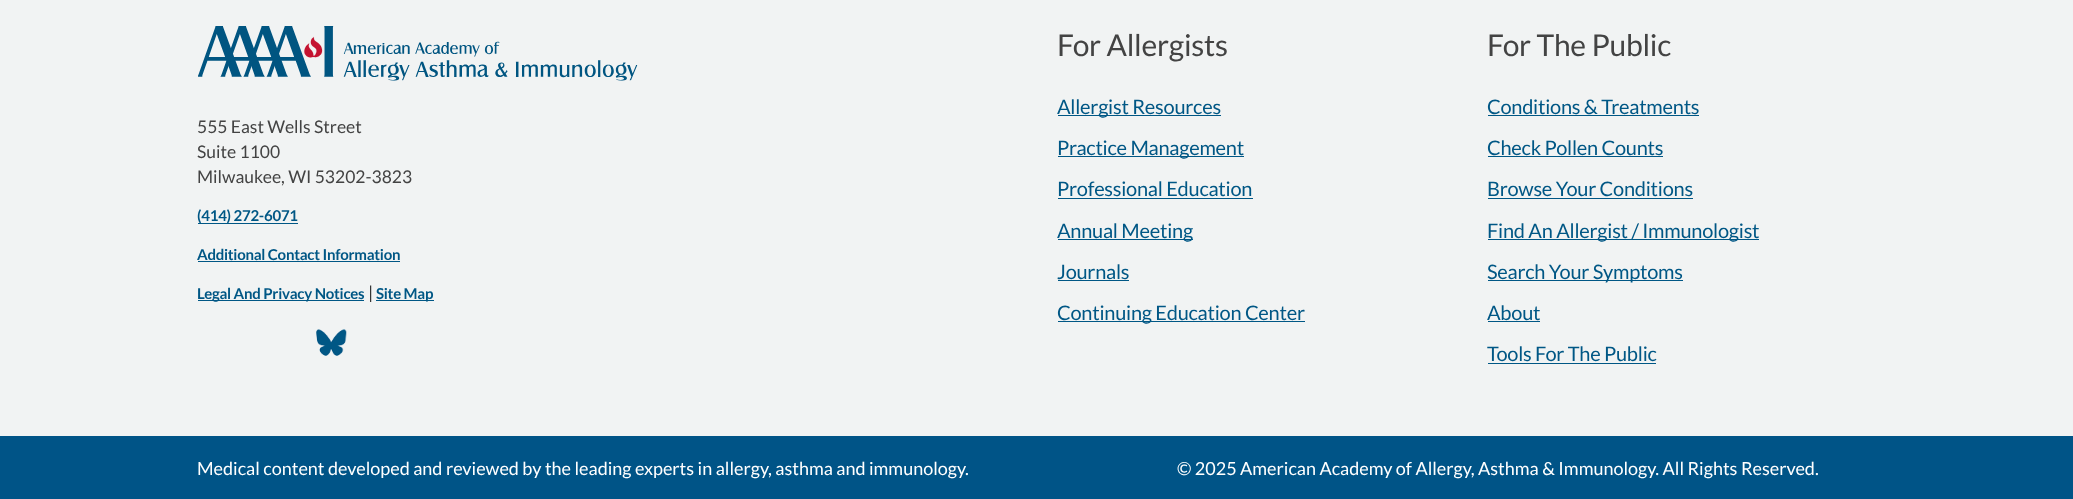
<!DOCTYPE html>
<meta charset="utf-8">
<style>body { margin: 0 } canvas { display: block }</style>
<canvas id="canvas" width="2073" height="499"></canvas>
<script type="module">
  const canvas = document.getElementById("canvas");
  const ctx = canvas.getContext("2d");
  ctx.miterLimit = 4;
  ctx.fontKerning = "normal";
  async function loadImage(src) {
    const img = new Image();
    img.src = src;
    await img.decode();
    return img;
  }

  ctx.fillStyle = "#f1f3f3";
  ctx.fillRect(0, 0, 2073, 499);
  ctx.drawImage(await loadImage("img1.png"), 198, 26, 440, 55);
  ctx.font = "17.5px Lato";
  ctx.fillStyle = "#434343";
  ctx.fillText("555 East Wells Street", 197, 133);
  ctx.fillText("Suite 1100", 197, 158);
  ctx.fillText("Milwaukee, WI 53202-3823", 197, 183);
  ctx.fillStyle = "#005785";
  ctx.fillRect(198, 223, 100, 1);
  ctx.letterSpacing = "-0.25px";
  ctx.font = "bold 15px Lato";
  ctx.fillText("(414) 272-6071", 197, 221);
  ctx.fillText("Additional Contact Information", 197, 260);
  ctx.fillRect(198, 261, 202, 1);
  ctx.fillRect(198, 300, 166, 1);
  ctx.fillText("Legal And Privacy Notices", 197, 299);
  ctx.letterSpacing = "0px";
  ctx.font = "17.5px Lato";
  ctx.fillStyle = "#323232";
  ctx.fillText("|", 368, 299);
  ctx.fillStyle = "#005785";
  ctx.fillRect(376, 300, 58, 1);
  ctx.letterSpacing = "-0.25px";
  ctx.font = "bold 15px Lato";
  ctx.fillText("Site Map", 376, 299);
  ctx.drawImage(await loadImage("img2.png"), 316, 329, 31, 27);
  ctx.font = "30px Lato";
  ctx.fillStyle = "#434343";
  ctx.fillText("For Allergists", 1057, 56);
  ctx.fillStyle = "#005785";
  ctx.fillRect(1058, 115, 163, 1);
  ctx.font = "20px Lato";
  ctx.fillText("Allergist Resources", 1057, 114);
  ctx.fillRect(1058, 156, 186, 1);
  ctx.fillText("Practice Management", 1057, 155);
  ctx.fillText("Professional Education", 1057, 196);
  ctx.fillRect(1058, 198, 195, 1);
  ctx.fillRect(1058, 239, 135, 1);
  ctx.fillText("Annual Meeting", 1057, 238);
  ctx.fillText("Journals", 1057, 279);
  ctx.fillRect(1058, 280, 71, 1);
  ctx.fillRect(1058, 321, 247, 1);
  ctx.fillText("Continuing Education Center", 1057, 320);
  ctx.font = "30px Lato";
  ctx.fillStyle = "#434343";
  ctx.fillText("For The Public", 1487, 56);
  ctx.font = "20px Lato";
  ctx.fillStyle = "#005785";
  ctx.fillText("Conditions & Treatments", 1487, 114);
  ctx.fillRect(1488, 115, 211, 1);
  ctx.fillText("Check Pollen Counts", 1487, 155);
  ctx.fillRect(1488, 156, 175, 1);
  ctx.fillText("Browse Your Conditions", 1487, 196);
  ctx.fillRect(1488, 198, 205, 1);
  ctx.fillRect(1488, 239, 271, 1);
  ctx.fillText("Find An Allergist / Immunologist", 1487, 238);
  ctx.fillRect(1488, 280, 195, 1);
  ctx.fillText("Search Your Symptoms", 1487, 279);
  ctx.fillText("About", 1487, 320);
  ctx.fillRect(1488, 321, 52, 1);
  ctx.fillText("Tools For The Public", 1487, 361);
  ctx.fillRect(1488, 363, 168, 1);
  ctx.fillStyle = "#005487";
  ctx.fillRect(0, 436, 2073, 63);
  ctx.letterSpacing = "0px";
  ctx.font = "18px Lato";
  ctx.fillStyle = "#ffffff";
  ctx.fillText("Medical content developed and reviewed by the leading experts in allergy, asthma and immunology.", 197, 475);
  ctx.fillText("© 2025 American Academy of Allergy, Asthma & Immunology. All Rights Reserved.", 1177, 475);
</script>
